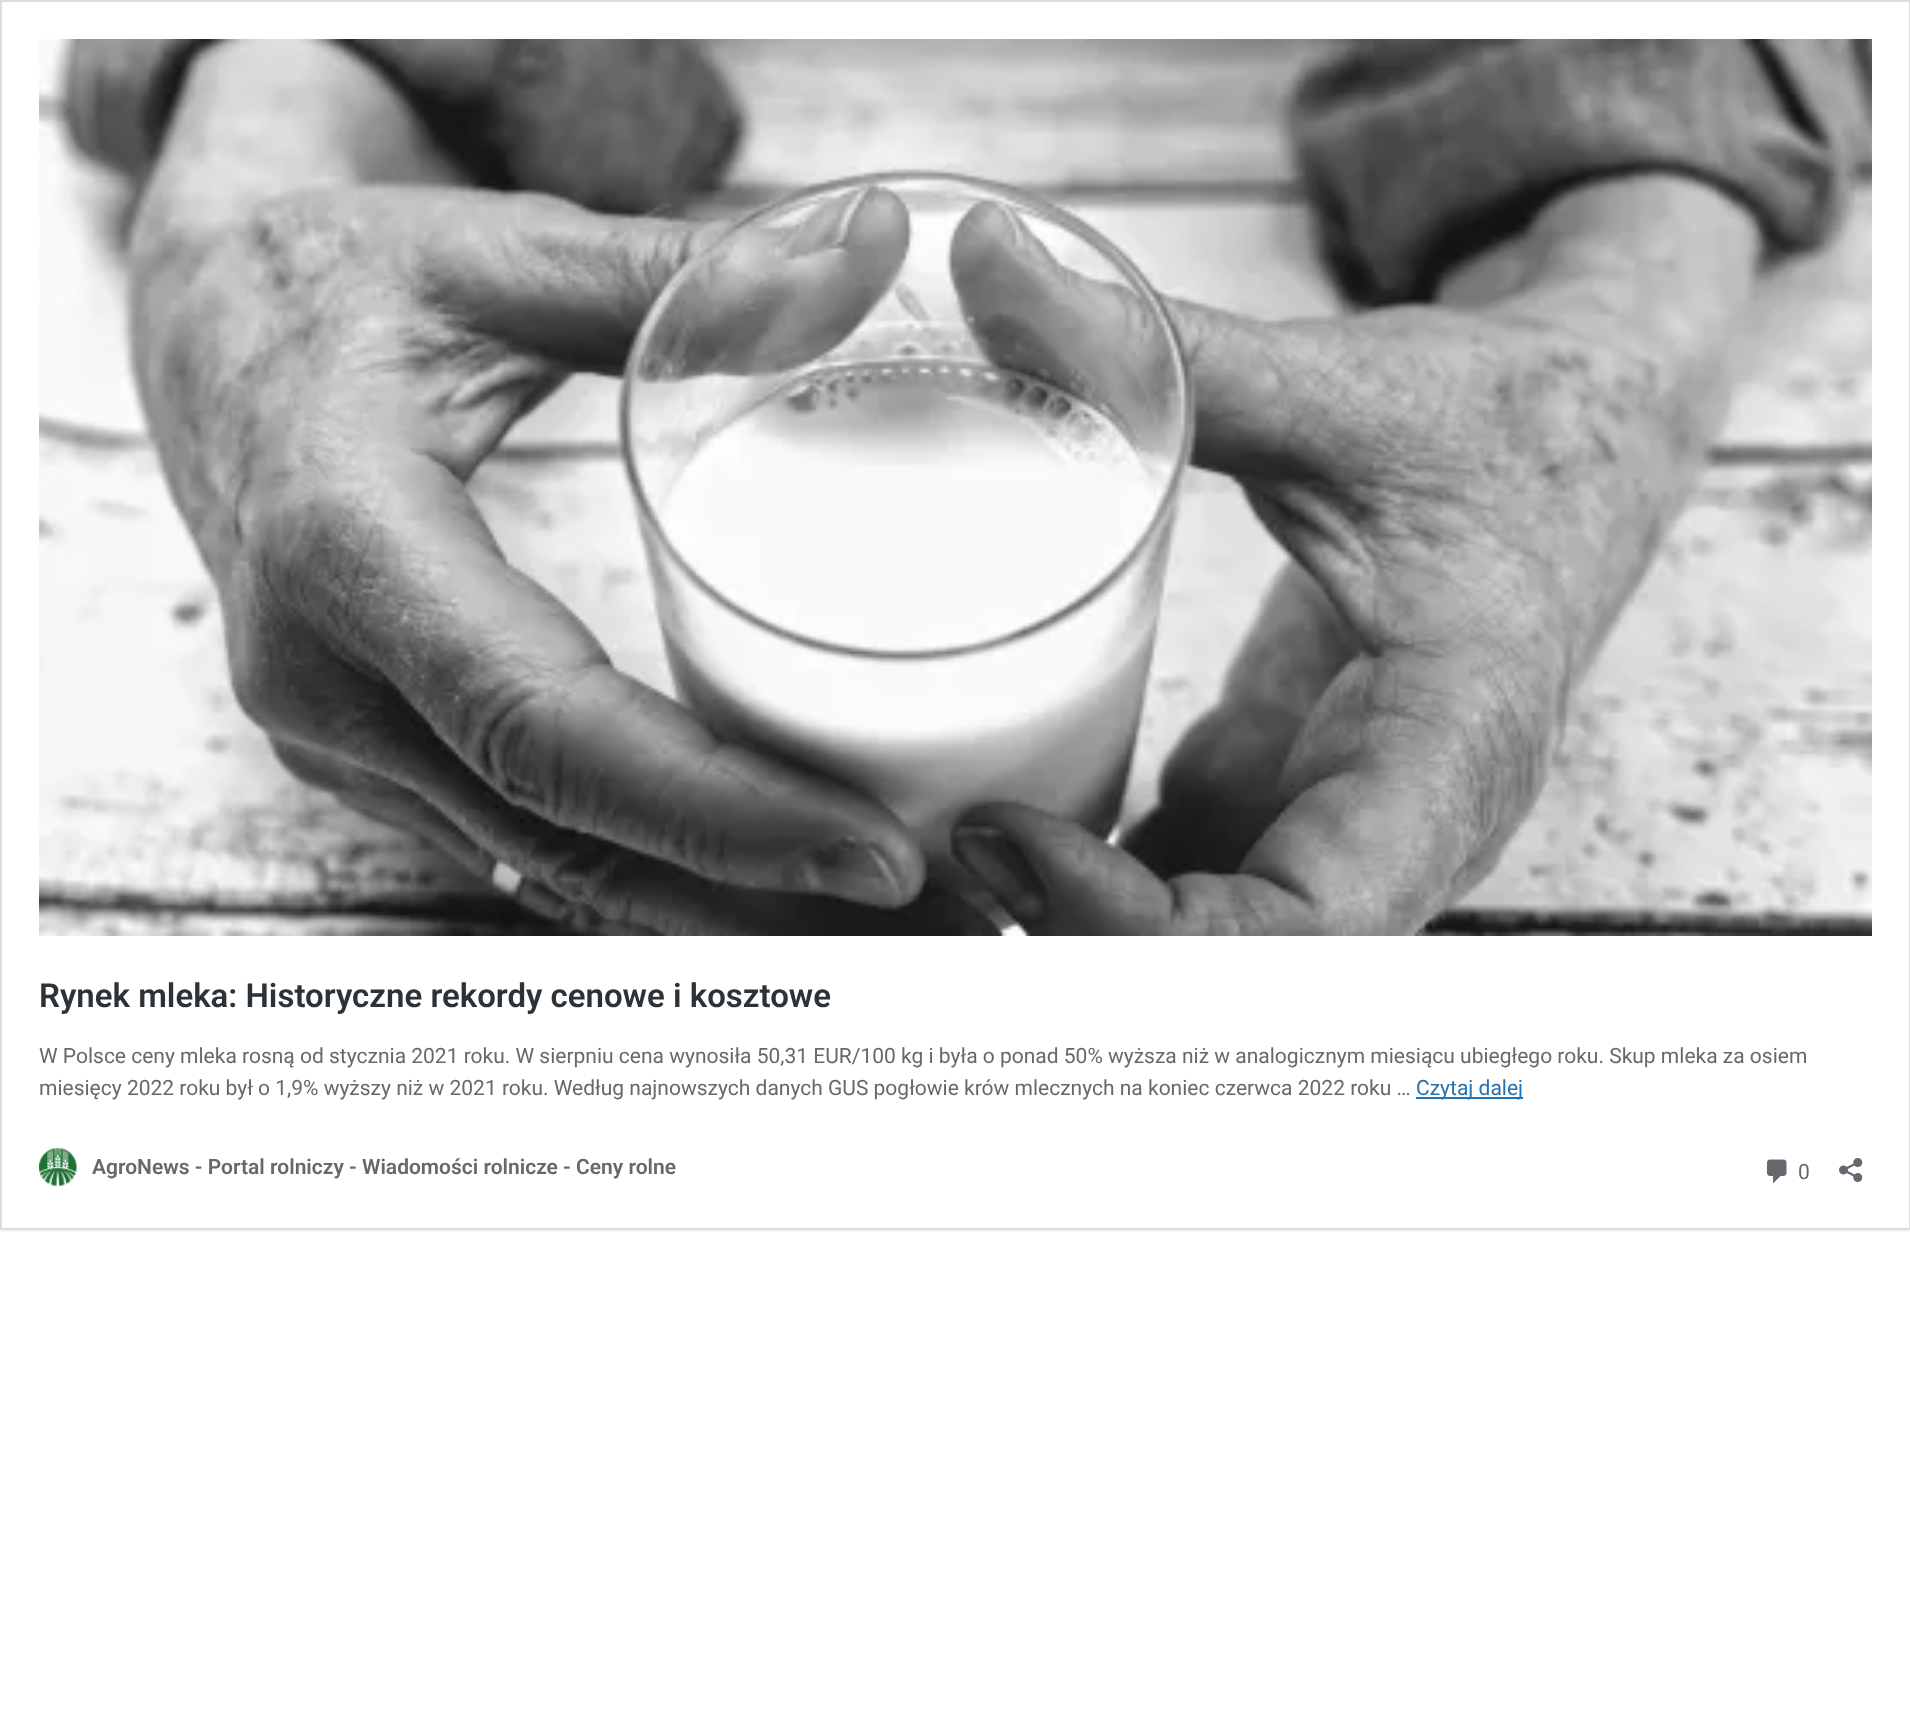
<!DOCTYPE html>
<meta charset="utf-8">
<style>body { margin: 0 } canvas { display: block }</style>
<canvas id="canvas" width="1910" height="1717"></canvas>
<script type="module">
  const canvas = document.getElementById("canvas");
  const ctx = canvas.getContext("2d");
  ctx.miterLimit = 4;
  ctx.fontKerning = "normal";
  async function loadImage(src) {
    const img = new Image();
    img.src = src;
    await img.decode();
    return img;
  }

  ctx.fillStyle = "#ffffff";
  ctx.fillRect(0, 0, 1910, 1717);
  ctx.save();
  ctx.beginPath();
  ctx.rect(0, 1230, 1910, 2);
  ctx.clip();
  ctx.fillStyle = "rgba(0, 0, 0, 0.05)";
  ctx.filter = "blur(1px)";
  ctx.beginPath();
  ctx.rect(0, 2, 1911, 1230);
  ctx.fill();
  ctx.filter = "none";
  ctx.restore();
  ctx.strokeStyle = "#dcdcde";
  ctx.lineWidth = 2;
  ctx.strokeRect(1, 1, 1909, 1228);
  ctx.drawImage(await loadImage("img1.png"), 39, 39, 1833, 897);
  ctx.font = "600 33px Roboto";
  ctx.fillStyle = "#2c3338";
  ctx.fillText("Rynek mleka: Historyczne rekordy cenowe i kosztowe", 39, 1007);
  ctx.font = "21px Roboto";
  ctx.fillStyle = "#646970";
  ctx.fillText("W Polsce ceny mleka rosną od stycznia 2021 roku. W sierpniu cena wynosiła 50,31 EUR/100 kg i była o ponad 50% wyższa niż w analogicznym miesiącu ubiegłego roku. Skup mleka za osiem", 39, 1063);
  ctx.fillText("miesięcy 2022 roku był o 1,9% wyższy niż w 2021 roku. Według najnowszych danych GUS pogłowie krów mlecznych na koniec czerwca 2022 roku …", 39, 1095);
  ctx.fillStyle = "#2271b1";
  ctx.fillRect(1416, 1097, 107, 2);
  ctx.fillText("Czytaj dalej", 1416, 1095);
  ctx.drawImage(await loadImage("img2.png"), 39, 1148, 38, 38);
  ctx.font = "600 21px Roboto";
  ctx.fillStyle = "#646970";
  ctx.fillText("AgroNews - Portal rolniczy - Wiadomości rolnicze - Ceny rolne", 92, 1174);
  ctx.drawImage(await loadImage("img3.png"), 1767, 1159, 20, 25);
  ctx.font = "21px Roboto";
  ctx.fillText("0", 1798, 1179);
  ctx.drawImage(await loadImage("img4.png"), 1839, 1158, 24, 24);
</script>
